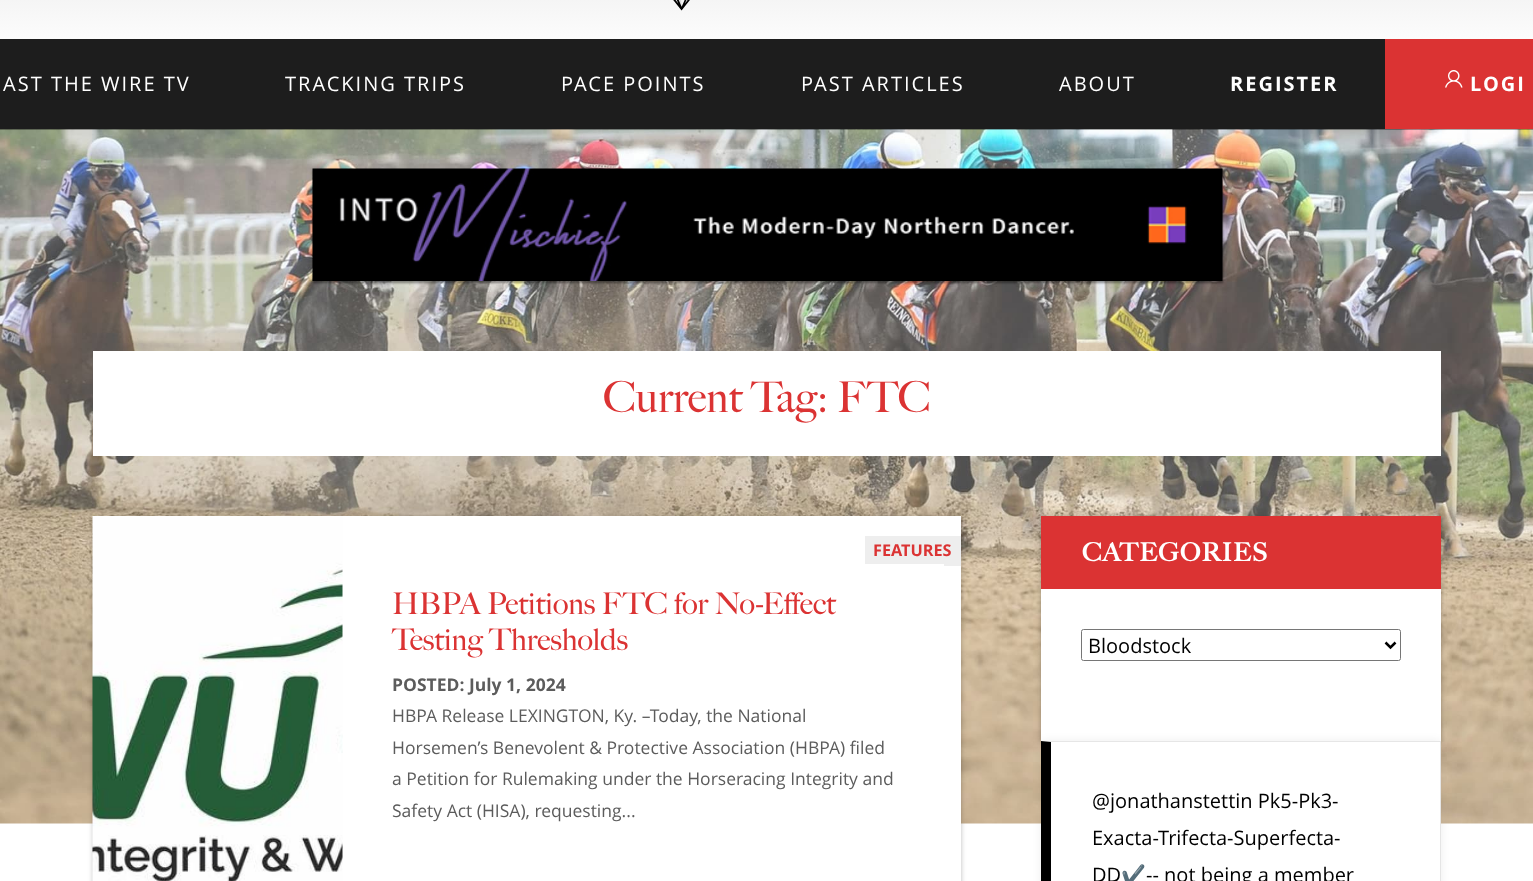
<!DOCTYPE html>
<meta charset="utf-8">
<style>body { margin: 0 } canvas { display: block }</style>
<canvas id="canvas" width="1533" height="881"></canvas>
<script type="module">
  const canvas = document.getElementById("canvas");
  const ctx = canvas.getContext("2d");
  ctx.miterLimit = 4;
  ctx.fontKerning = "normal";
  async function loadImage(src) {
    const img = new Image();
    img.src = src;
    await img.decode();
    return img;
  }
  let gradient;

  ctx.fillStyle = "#ffffff";
  ctx.fillRect(0, 0, 1533, 881);
  ctx.drawImage(await loadImage("img3.png"), 0, 129, 1533, 695);
  ctx.fillStyle = "rgba(0, 0, 0, 0.32)";
  ctx.filter = "blur(0.5px)";
  ctx.beginPath();
  ctx.rect(0, 40, 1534, 90);
  ctx.fill();
  ctx.filter = "none";
  gradient = ctx.createLinearGradient(767, -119, 767, 39);
  gradient.addColorStop(0, "#dfdfdf");
  gradient.addColorStop(1, "#fcfcfc");
  ctx.fillStyle = gradient;
  ctx.fillRect(0, 0, 1533, 39);
  ctx.drawImage(await loadImage("img1.png"), 673, 0, 17, 11);
  ctx.fillStyle = "#1d1d1d";
  ctx.fillRect(0, 39, 1385, 90);
  ctx.letterSpacing = "2px";
  ctx.font = "20px Open Sans";
  ctx.fillStyle = "#ffffff";
  ctx.fillText("AST THE WIRE TV", 3, 91);
  ctx.fillText("TRACKING TRIPS", 285, 91);
  ctx.fillText("PACE POINTS", 561, 91);
  ctx.fillText("PAST ARTICLES", 801, 91);
  ctx.fillText("ABOUT", 1059, 91);
  ctx.font = "bold 20px Open Sans";
  ctx.fillText("REGISTER", 1230, 91);
  ctx.fillStyle = "#db3333";
  ctx.fillRect(1385, 39, 148, 90);
  ctx.drawImage(await loadImage("img2.png"), 1445, 70, 18, 18);
  ctx.fillStyle = "#ffffff";
  ctx.fillText("LOGI", 1470, 91);
  ctx.fillStyle = "rgba(0, 0, 0, 0.4)";
  ctx.filter = "blur(1px)";
  ctx.beginPath();
  ctx.rect(313, 170, 910, 113);
  ctx.fill();
  ctx.filter = "none";
  ctx.drawImage(await loadImage("img4.png"), 312, 168, 911, 113);
  ctx.fillStyle = "#ffffff";
  ctx.fillRect(93, 351, 1348, 105);
  ctx.letterSpacing = "0px";
  ctx.font = "42.5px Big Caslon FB";
  ctx.fillStyle = "#db3333";
  ctx.fillText("Current Tag: FTC", 603, 412);
  ctx.fillStyle = "rgba(0, 0, 0, 0.27)";
  ctx.filter = "blur(2.5px)";
  ctx.beginPath();
  ctx.rect(93, 518, 868, 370);
  ctx.fill();
  ctx.filter = "none";
  ctx.fillStyle = "#ffffff";
  ctx.fillRect(342, 516, 619, 365);
  ctx.drawImage(await loadImage("img5.png"), 92, 516, 251, 365);
  ctx.fillStyle = "#eeeeee";
  ctx.fillRect(944, 536, 17, 30);
  ctx.fillRect(865, 536, 79, 28);
  ctx.font = "bold 16.25px Open Sans";
  ctx.fillStyle = "#db3333";
  ctx.fillText("FEATURES", 873, 556);
  ctx.font = "30px Big Caslon FB";
  ctx.fillText("HBPA Petitions FTC for No-Effect", 392, 614);
  ctx.fillText("Testing Thresholds", 392, 650);
  ctx.font = "bold 17.5px Open Sans";
  ctx.fillStyle = "#5c5c5c";
  ctx.fillText("POSTED: July 1, 2024", 392, 691);
  ctx.font = "17.5px Open Sans";
  ctx.fillText("HBPA Release LEXINGTON, Ky. –Today, the National", 392, 722);
  ctx.fillText("Horsemen’s Benevolent & Protective Association (HBPA) filed", 392, 754);
  ctx.fillText("a Petition for Rulemaking under the Horseracing Integrity and", 392, 785);
  ctx.fillText("Safety Act (HISA), requesting...", 392, 817);
  ctx.fillStyle = "rgba(0, 0, 0, 0.27)";
  ctx.filter = "blur(2.5px)";
  ctx.beginPath();
  ctx.rect(1041, 518, 400, 225);
  ctx.fill();
  ctx.filter = "none";
  ctx.fillStyle = "#ffffff";
  ctx.fillRect(1041, 589, 400, 152);
  ctx.fillStyle = "#db3333";
  ctx.fillRect(1041, 516, 400, 73);
  ctx.letterSpacing = "1.25px";
  ctx.font = "bold 25px Big Caslon FB";
  ctx.fillStyle = "#ffffff";
  ctx.fillText("CATEGORIES", 1082, 561);
  ctx.beginPath();
  ctx.roundRect(1081.5, 629.5, 319, 31, 2);
  ctx.strokeStyle = "#767676";
  ctx.stroke();
  ctx.beginPath();
  ctx.moveTo(1385.5, 642.5);
  ctx.lineTo(1390.5, 647.5);
  ctx.lineTo(1395.5, 642.5);
  ctx.strokeStyle = "#000000";
  ctx.lineWidth = 2.5;
  ctx.stroke();
  ctx.letterSpacing = "0px";
  ctx.font = "20px Open Sans";
  ctx.fillStyle = "#000000";
  ctx.fillText("Bloodstock", 1088, 653);
  ctx.fillStyle = "rgba(0, 0, 0, 0.07)";
  ctx.filter = "blur(4px)";
  ctx.beginPath();
  ctx.rect(1041, 741, 400, 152);
  ctx.fill();
  ctx.filter = "none";
  ctx.fillStyle = "#ffffff";
  ctx.fillRect(1041, 741, 400, 140);
  ctx.fillStyle = "#e6e6e6";
  ctx.beginPath();
  ctx.moveTo(1041, 741);
  ctx.lineTo(1441, 741);
  ctx.lineTo(1440, 742);
  ctx.lineTo(1051, 742);
  ctx.closePath();
  ctx.fill();
  ctx.fillStyle = "rgba(0, 0, 0, 0.1)";
  ctx.beginPath();
  ctx.moveTo(1441, 741);
  ctx.lineTo(1441, 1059);
  ctx.lineTo(1440, 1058);
  ctx.lineTo(1440, 742);
  ctx.closePath();
  ctx.fill();
  ctx.fillStyle = "#000000";
  ctx.beginPath();
  ctx.moveTo(1041, 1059);
  ctx.lineTo(1041, 741);
  ctx.lineTo(1051, 742);
  ctx.lineTo(1051, 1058);
  ctx.closePath();
  ctx.fill();
  ctx.fillText("@jonathanstettin Pk5-Pk3-", 1092, 808);
  ctx.fillText("Exacta-Trifecta-Superfecta-", 1092, 845);
  ctx.fillText("DD", 1092, 882);
  ctx.font = "20px Noto Color Emoji";
  ctx.fillText("✔️", 1121, 882);
  ctx.font = "20px Open Sans";
  ctx.fillText("-- not being a member", 1146, 882);
</script>
